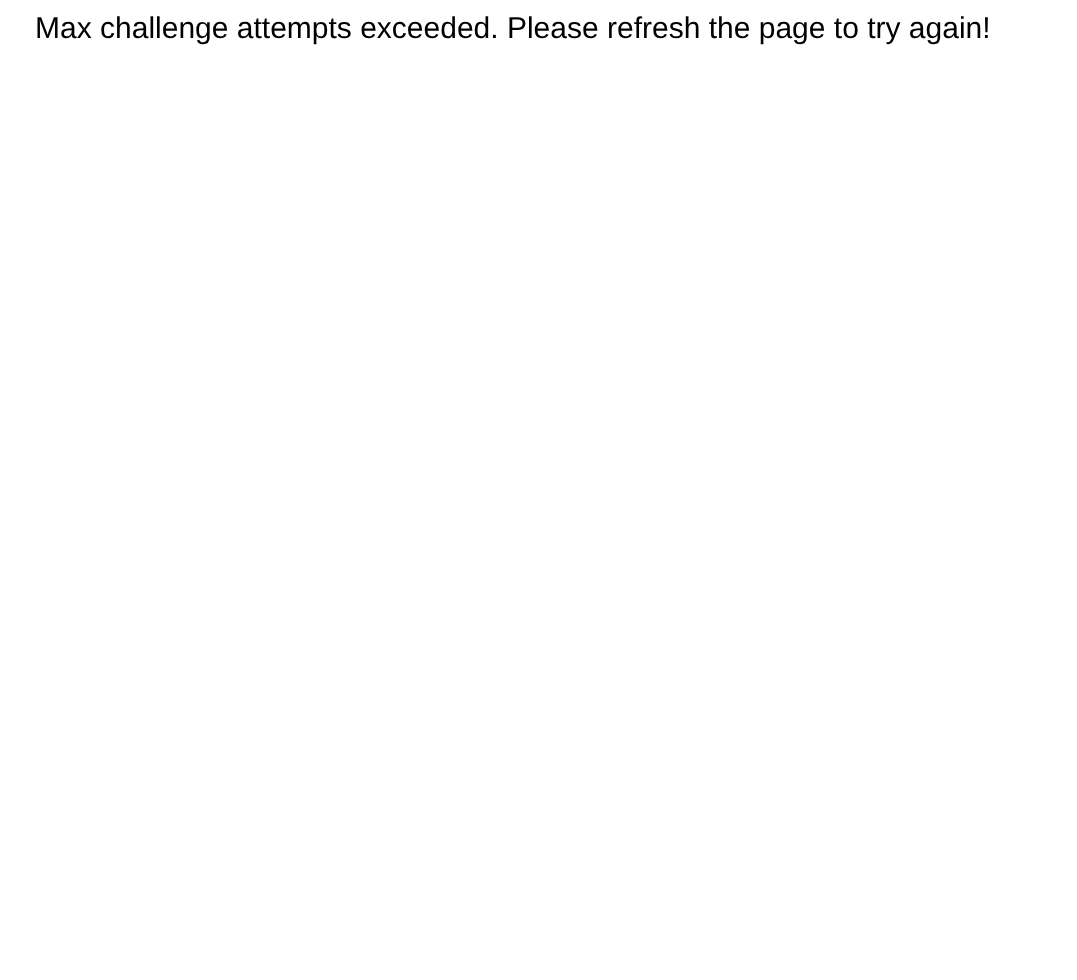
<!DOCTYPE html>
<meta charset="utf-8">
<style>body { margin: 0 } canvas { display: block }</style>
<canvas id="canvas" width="1077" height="980"></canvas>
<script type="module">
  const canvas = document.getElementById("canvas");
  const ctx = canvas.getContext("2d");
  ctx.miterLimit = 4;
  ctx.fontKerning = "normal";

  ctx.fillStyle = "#ffffff";
  ctx.fillRect(0, 0, 1077, 980);
  ctx.font = "30px Liberation Sans";
  ctx.fillStyle = "#000000";
  ctx.fillText("Max challenge attempts exceeded. Please refresh the page to try again!", 35, 38);
</script>
